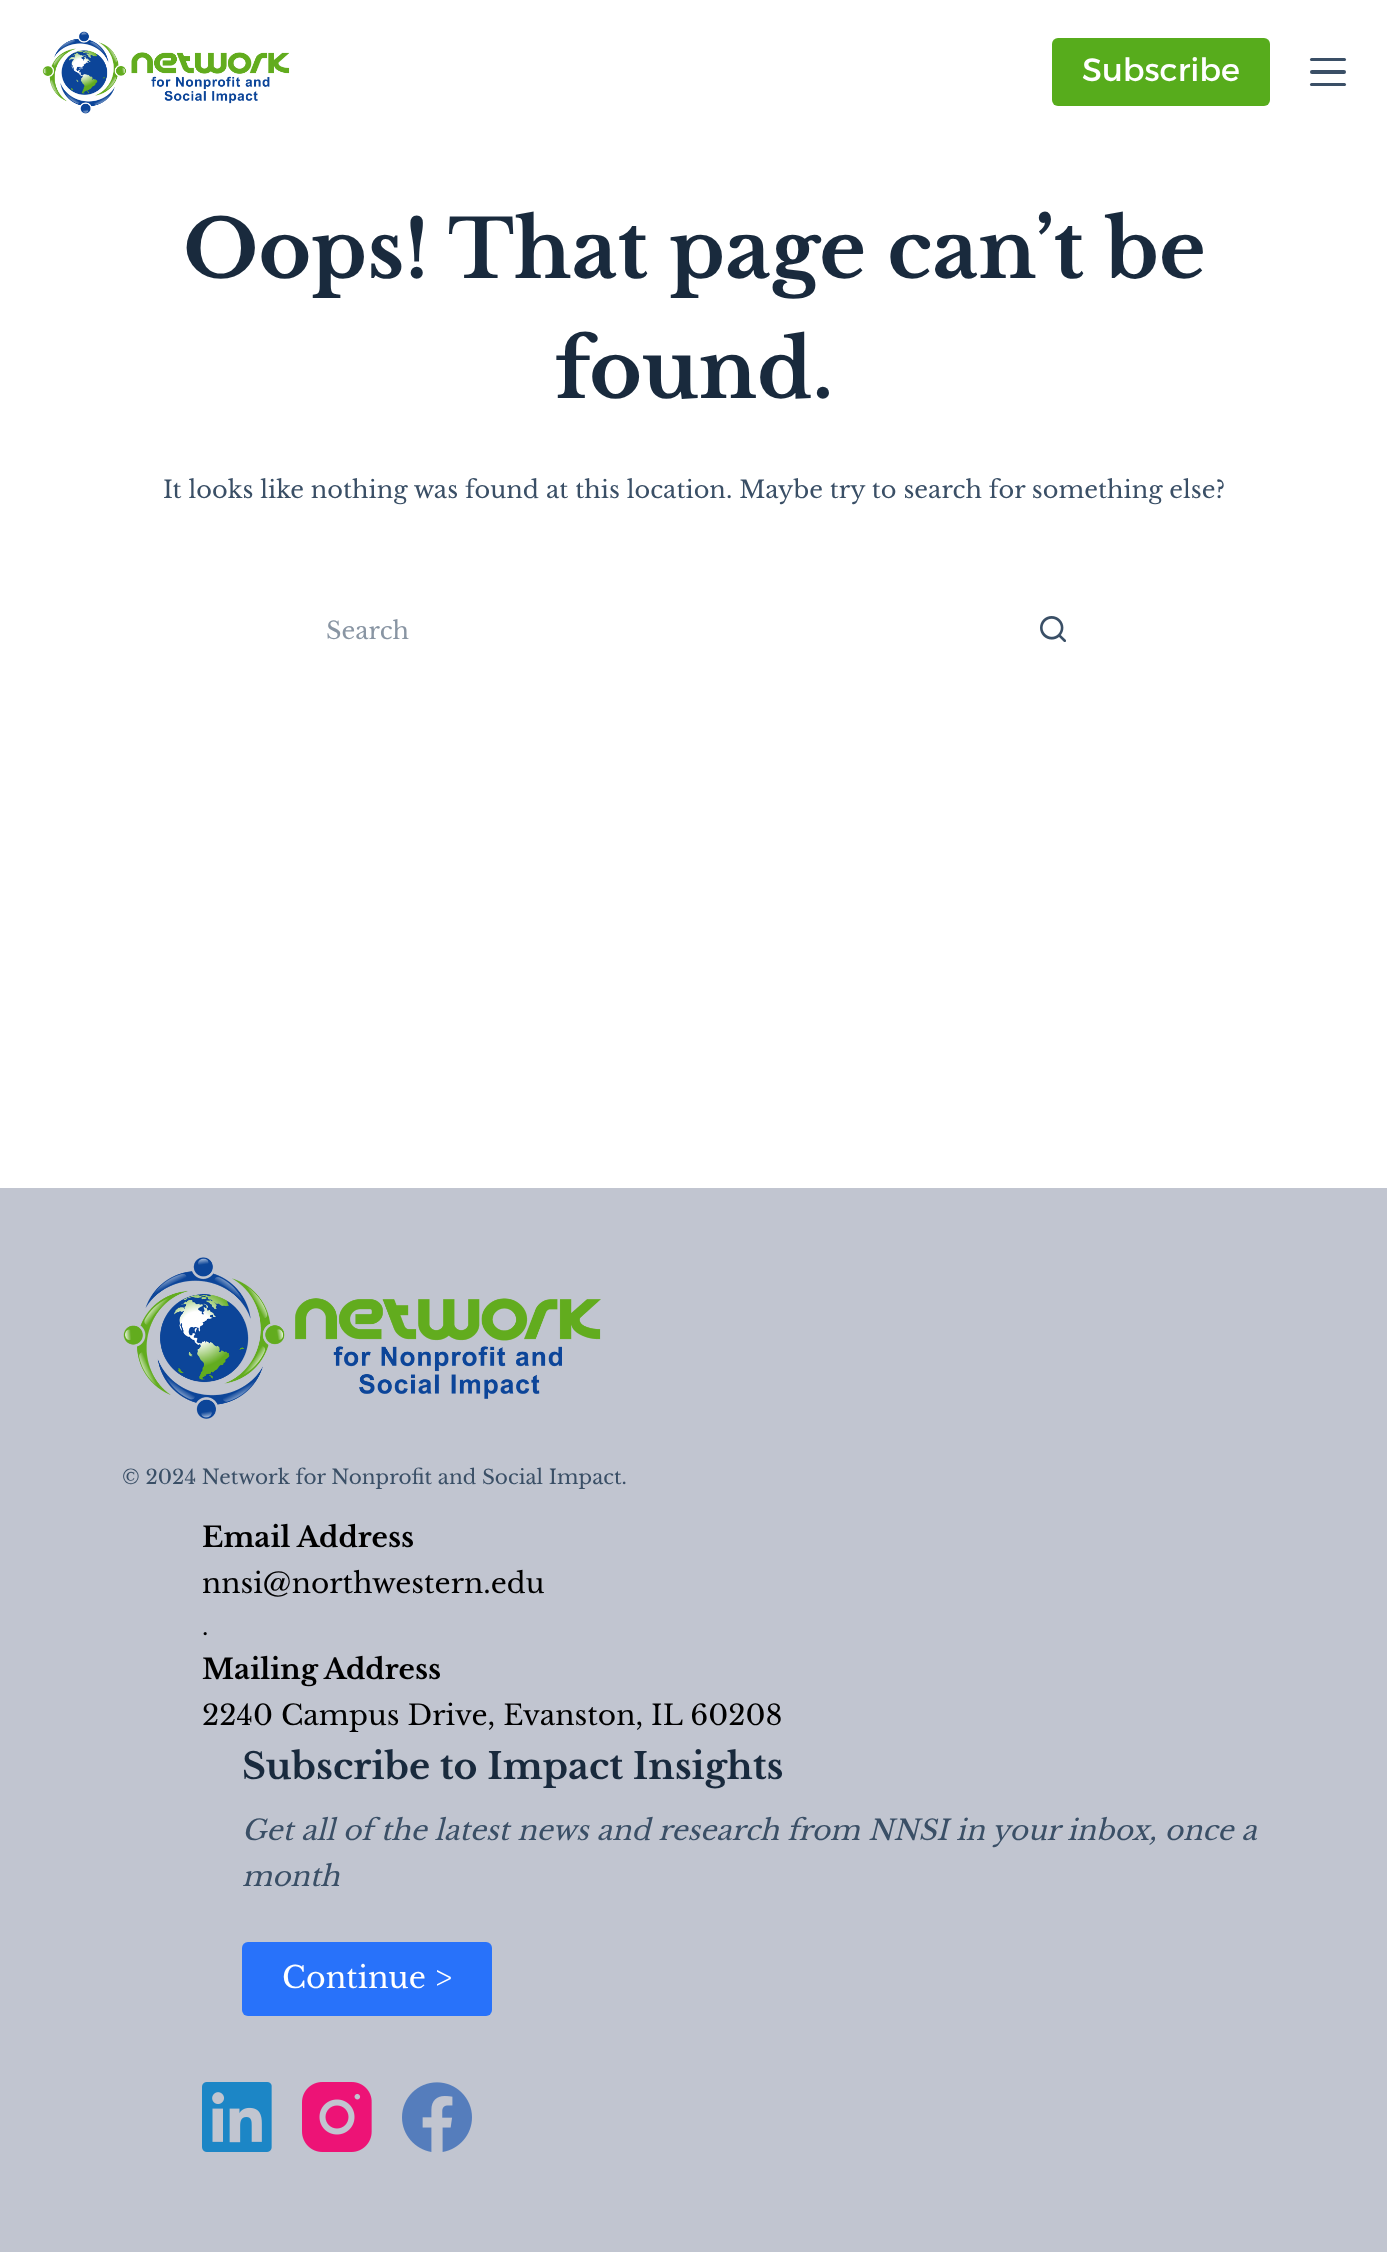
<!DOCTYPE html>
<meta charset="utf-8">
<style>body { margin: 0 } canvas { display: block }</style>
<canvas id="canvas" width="1387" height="2252"></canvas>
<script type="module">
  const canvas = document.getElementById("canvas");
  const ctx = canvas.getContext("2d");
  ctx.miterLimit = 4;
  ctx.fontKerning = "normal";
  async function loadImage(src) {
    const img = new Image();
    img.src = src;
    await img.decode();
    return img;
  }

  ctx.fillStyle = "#ffffff";
  ctx.fillRect(0, 0, 1387, 2252);
  ctx.drawImage(await loadImage("img1.png"), 42, 31, 248, 83);
  ctx.fillStyle = "#57ac1c";
  ctx.beginPath();
  ctx.roundRect(1052, 38, 218, 68, 6);
  ctx.fill();
  ctx.font = "32px Alexandria";
  ctx.fillStyle = "#ffffff";
  ctx.fillText("Subscribe", 1082, 81);
  ctx.fillStyle = "#3a4f66";
  ctx.beginPath();
  ctx.roundRect(1310, 58, 36, 3, 1.5);
  ctx.fill();
  ctx.beginPath();
  ctx.roundRect(1310, 70, 36, 4, 2);
  ctx.fill();
  ctx.beginPath();
  ctx.roundRect(1310, 83, 36, 3, 1.5);
  ctx.fill();
  ctx.font = "bold 80px Libre Baskerville";
  ctx.fillStyle = "#192a3d";
  ctx.fillText("Oops! That page can’t be", 183, 278);
  ctx.fillText("found.", 555, 398);
  ctx.font = "24px Libre Baskerville";
  ctx.fillStyle = "#3a4f66";
  ctx.fillText("It looks like nothing was found at this location. Maybe try to search for something else?", 163, 498);
  ctx.fillStyle = "#8995a3";
  ctx.fillText("Search", 326, 639);
  ctx.drawImage(await loadImage("img2.png"), 1040, 616, 26, 26);
  ctx.fillStyle = "#c1c5d0";
  ctx.fillRect(0, 1188, 1387, 1064);
  ctx.drawImage(await loadImage("img3.png"), 123, 1257, 478, 162);
  ctx.font = "20px Libre Baskerville";
  ctx.fillStyle = "#3a4f66";
  ctx.fillText("© 2024 Network for Nonprofit and Social Impact.", 122, 1484);
  ctx.font = "bold 28px Libre Baskerville";
  ctx.fillStyle = "#000000";
  ctx.fillText("Email Address", 202, 1547);
  ctx.font = "28px Libre Baskerville";
  ctx.fillText("nnsi@northwestern.edu", 202, 1593);
  ctx.font = "24px Libre Baskerville";
  ctx.fillText(".", 202, 1635);
  ctx.font = "bold 28px Libre Baskerville";
  ctx.fillText("Mailing Address", 202, 1679);
  ctx.font = "28px Libre Baskerville";
  ctx.fillText("2240 Campus Drive, Evanston, IL 60208", 202, 1725);
  ctx.font = "bold 36.25px Libre Baskerville";
  ctx.fillStyle = "#192a3d";
  ctx.fillText("Subscribe to Impact Insights", 242, 1779);
  ctx.font = "italic 28px Libre Baskerville";
  ctx.fillStyle = "#3a4f66";
  ctx.fillText("Get all of the latest news and research from NNSI in your inbox, once a", 242, 1840);
  ctx.fillText("month", 242, 1886);
  ctx.fillStyle = "#2872fa";
  ctx.beginPath();
  ctx.roundRect(242, 1942, 250, 74, 6);
  ctx.fill();
  ctx.font = "30px Libre Baskerville";
  ctx.fillStyle = "#ffffff";
  ctx.fillText("Continue >", 282, 1988);
  ctx.drawImage(await loadImage("img4.png"), 202, 2082, 70, 70);
  ctx.drawImage(await loadImage("img5.png"), 302, 2082, 70, 70);
  ctx.drawImage(await loadImage("img6.png"), 402, 2082, 70, 70);
</script>
